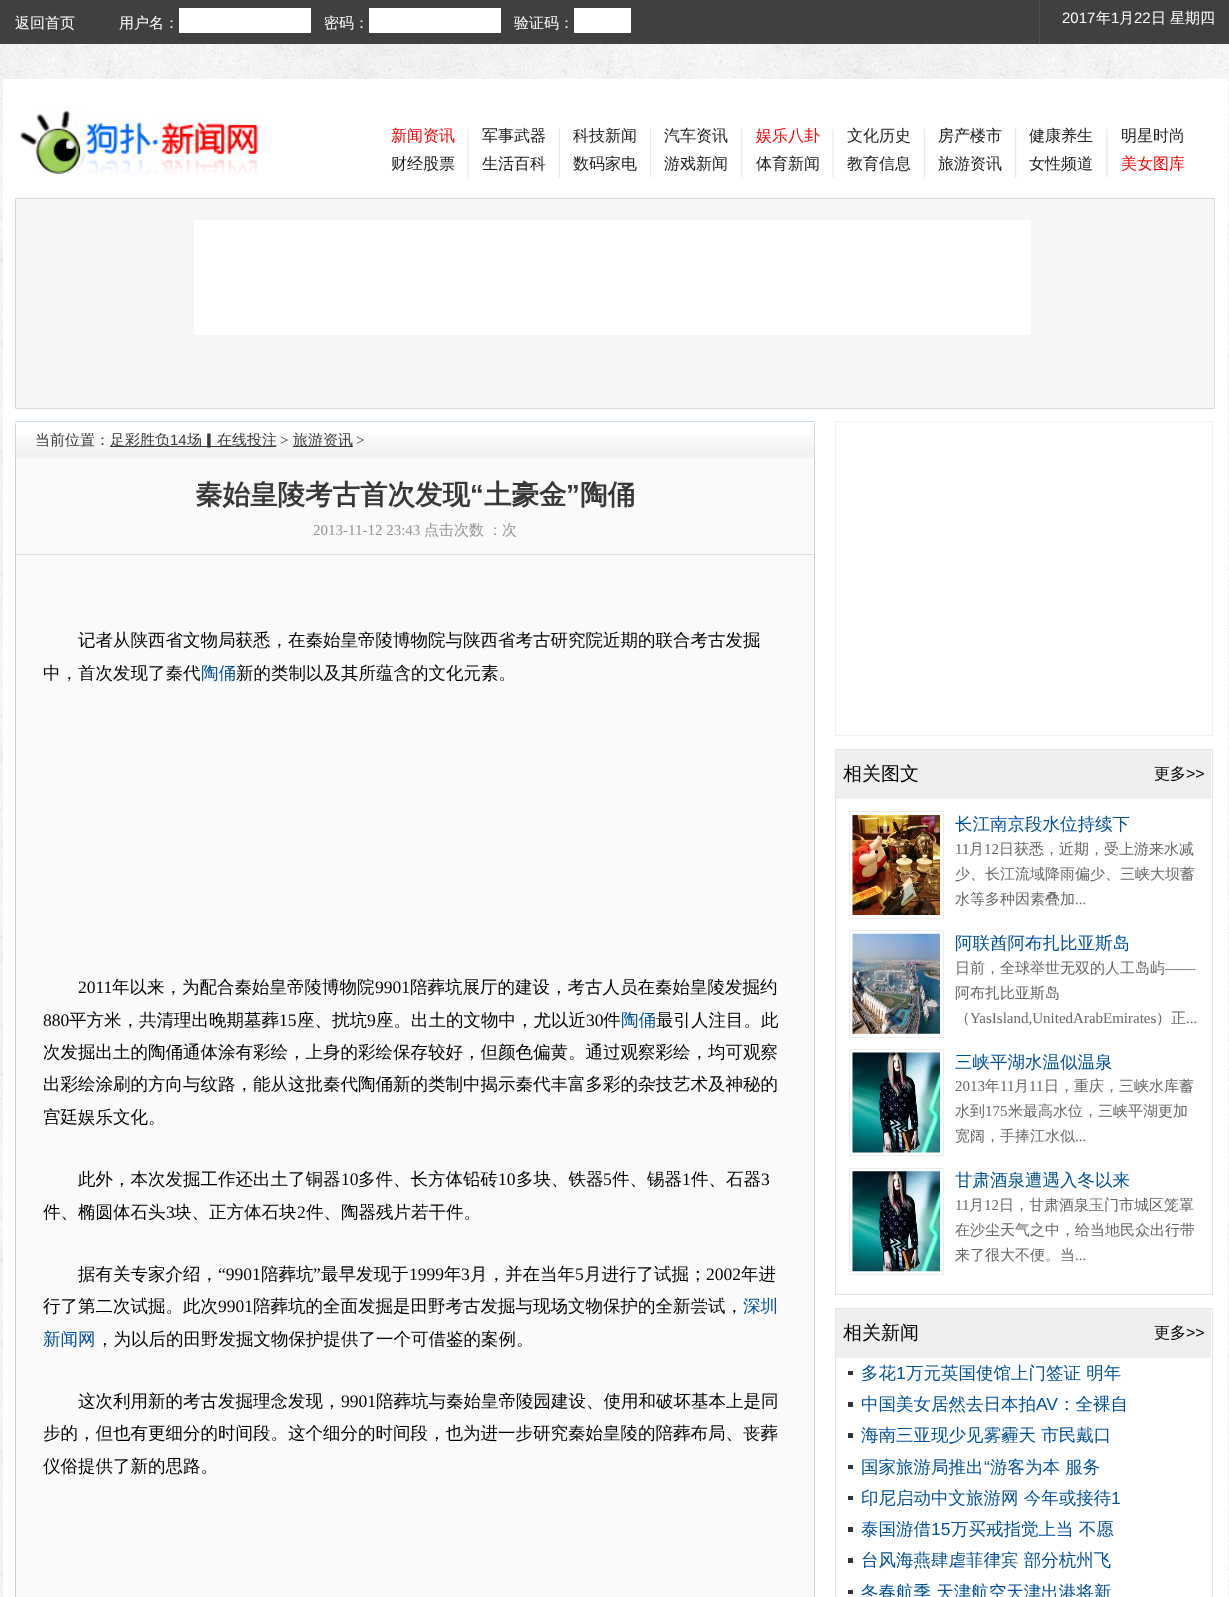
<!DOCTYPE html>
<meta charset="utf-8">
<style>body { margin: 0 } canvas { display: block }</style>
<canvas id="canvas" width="1229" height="1597"></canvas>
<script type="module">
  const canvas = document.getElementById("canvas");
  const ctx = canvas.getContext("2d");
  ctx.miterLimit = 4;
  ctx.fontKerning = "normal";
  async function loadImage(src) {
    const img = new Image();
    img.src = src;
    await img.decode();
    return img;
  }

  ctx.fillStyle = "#ffffff";
  ctx.fillRect(0, 0, 1229, 1597);
  ctx.drawImage(await loadImage("img1.png"), 0, 44, 1229, 1553);
  ctx.fillStyle = "#404040";
  ctx.fillRect(0, 0, 1229, 44);
  ctx.font = "500 15px WenQuanYi Zen Hei";
  ctx.fillStyle = "#ffffff";
  ctx.fillText("返回首页", 15, 28);
  ctx.fillText("用户名：", 119, 28);
  ctx.fillRect(179, 8, 132, 25);
  ctx.fillText("密码：", 324, 28);
  ctx.fillRect(369, 8, 132, 25);
  ctx.fillText("验证码：", 514, 28);
  ctx.fillRect(574, 8, 57, 25);
  ctx.fillStyle = "#525252";
  ctx.fillRect(1039, 0, 1, 44);
  ctx.font = "15px Liberation Sans";
  ctx.fillStyle = "#ffffff";
  ctx.fillText("2017", 1062, 23);
  ctx.font = "500 15px WenQuanYi Zen Hei";
  ctx.fillText("年", 1096, 23);
  ctx.font = "15px Liberation Sans";
  ctx.fillText("1", 1111, 23);
  ctx.font = "500 15px WenQuanYi Zen Hei";
  ctx.fillText("月", 1119, 23);
  ctx.font = "15px Liberation Sans";
  ctx.fillText("22", 1134, 23);
  ctx.font = "500 15px WenQuanYi Zen Hei";
  ctx.fillText("日", 1151, 23);
  ctx.fillText("星期四", 1170, 23);
  ctx.fillRect(3, 79, 1225, 1518);
  ctx.drawImage(await loadImage("img2.png"), 20, 110, 238, 65);
  ctx.drawImage(await loadImage("img3.png"), 467, 129, 2, 49);
  ctx.font = "500 16px WenQuanYi Zen Hei";
  ctx.fillStyle = "#ff0000";
  ctx.fillText("新闻资讯", 391, 141);
  ctx.fillStyle = "#1b1b1b";
  ctx.fillText("财经股票", 391, 169);
  ctx.drawImage(await loadImage("img4.png"), 558, 128, 2, 50);
  ctx.fillText("军事武器", 482, 141);
  ctx.fillText("生活百科", 482, 169);
  ctx.drawImage(await loadImage("img5.png"), 650, 128, 2, 50);
  ctx.fillText("科技新闻", 573, 141);
  ctx.fillText("数码家电", 573, 169);
  ctx.drawImage(await loadImage("img6.png"), 741, 129, 2, 49);
  ctx.fillText("汽车资讯", 664, 141);
  ctx.fillText("游戏新闻", 664, 169);
  ctx.drawImage(await loadImage("img3.png"), 832, 129, 2, 49);
  ctx.fillStyle = "#ff0000";
  ctx.fillText("娱乐八卦", 756, 141);
  ctx.fillStyle = "#1b1b1b";
  ctx.fillText("体育新闻", 756, 169);
  ctx.drawImage(await loadImage("img4.png"), 923, 128, 2, 50);
  ctx.fillText("文化历史", 847, 141);
  ctx.fillText("教育信息", 847, 169);
  ctx.drawImage(await loadImage("img5.png"), 1015, 128, 2, 50);
  ctx.fillText("房产楼市", 938, 141);
  ctx.fillText("旅游资讯", 938, 169);
  ctx.drawImage(await loadImage("img6.png"), 1106, 129, 2, 49);
  ctx.fillText("健康养生", 1029, 141);
  ctx.fillText("女性频道", 1029, 169);
  ctx.fillText("明星时尚", 1121, 141);
  ctx.fillStyle = "#ff0000";
  ctx.fillText("美女图库", 1121, 169);
  ctx.fillStyle = "#f6f6f6";
  ctx.beginPath();
  ctx.rect(15.5, 198.5, 1199, 210);
  ctx.fill();
  ctx.strokeStyle = "#d8d8d8";
  ctx.stroke();
  ctx.fillStyle = "#ffffff";
  ctx.fillRect(194, 220, 837, 115);
  ctx.fillStyle = "#c7d8ea";
  ctx.fillRect(15, 421, 800, 1);
  ctx.drawImage(await loadImage("img7.png"), 16, 435, 798, 24);
  ctx.fillRect(814, 423, 1, 36);
  ctx.fillRect(15, 423, 1, 36);
  ctx.font = "500 15px WenQuanYi Zen Hei";
  ctx.fillStyle = "#383838";
  ctx.fillText("当前位置：", 35, 445);
  ctx.fillRect(110, 446, 166, 1);
  ctx.fillText("足彩胜负", 110, 445);
  ctx.font = "15px Liberation Sans";
  ctx.fillText("14", 170, 445);
  ctx.font = "500 15px WenQuanYi Zen Hei";
  ctx.fillText("场▎在线投注", 187, 445);
  ctx.font = "15px Liberation Serif";
  ctx.fillText(">", 280, 445);
  ctx.fillRect(293, 446, 60, 1);
  ctx.font = "500 15px WenQuanYi Zen Hei";
  ctx.fillText("旅游资讯", 293, 445);
  ctx.font = "15px Liberation Serif";
  ctx.fillText(">", 356, 445);
  ctx.fillStyle = "#fafafa";
  ctx.fillRect(16, 459, 798, 1138);
  ctx.fillStyle = "#cccccc";
  ctx.fillRect(814, 459, 1, 1138);
  ctx.fillRect(15, 459, 1, 1138);
  ctx.font = "bold 27.5px WenQuanYi Zen Hei";
  ctx.fillStyle = "#383838";
  ctx.fillText("秦始皇陵考古首次发现", 195, 504);
  ctx.font = "bold 27.5px Liberation Sans";
  ctx.fillText("“", 470, 504);
  ctx.font = "bold 27.5px WenQuanYi Zen Hei";
  ctx.fillText("土豪金", 484, 504);
  ctx.font = "bold 27.5px Liberation Sans";
  ctx.fillText("”", 566, 504);
  ctx.font = "bold 27.5px WenQuanYi Zen Hei";
  ctx.fillText("陶俑", 580, 504);
  ctx.fillStyle = "#e0e0e0";
  ctx.fillRect(16, 554, 798, 1);
  ctx.font = "15px Liberation Serif";
  ctx.fillStyle = "#929496";
  ctx.fillText("2013-11-12 23:43", 313, 535);
  ctx.wordSpacing = "-1px";
  ctx.font = "500 15px WenQuanYi Zen Hei";
  ctx.fillText("点击次数 ：", 424, 535);
  ctx.wordSpacing = "0px";
  ctx.fillText("次", 502, 535);
  ctx.font = "500 17.5px WenQuanYi Zen Hei";
  ctx.fillStyle = "#000000";
  ctx.fillText("记者从陕西省文物局获悉，在秦始皇帝陵博物院与陕西省考古研究院近期的联合考古发掘", 78, 646);
  ctx.fillText("中，首次发现了秦代", 43, 679);
  ctx.fillStyle = "#00509a";
  ctx.fillText("陶俑", 201, 679);
  ctx.fillStyle = "#000000";
  ctx.fillText("新的类制以及其所蕴含的文化元素。", 236, 679);
  ctx.font = "17.5px Liberation Serif";
  ctx.fillText("2011", 78, 993);
  ctx.font = "500 17.5px WenQuanYi Zen Hei";
  ctx.fillText("年以来，为配合秦始皇帝陵博物院", 112, 993);
  ctx.font = "17.5px Liberation Serif";
  ctx.fillText("9901", 375, 993);
  ctx.font = "500 17.5px WenQuanYi Zen Hei";
  ctx.fillText("陪葬坑展厅的建设，考古人员在秦始皇陵发掘约", 410, 993);
  ctx.font = "17.5px Liberation Serif";
  ctx.fillText("880", 43, 1026);
  ctx.font = "500 17.5px WenQuanYi Zen Hei";
  ctx.fillText("平方米，共清理出晚期墓葬", 69, 1026);
  ctx.font = "17.5px Liberation Serif";
  ctx.fillText("15", 279, 1026);
  ctx.font = "500 17.5px WenQuanYi Zen Hei";
  ctx.fillText("座、扰坑", 297, 1026);
  ctx.font = "17.5px Liberation Serif";
  ctx.fillText("9", 367, 1026);
  ctx.font = "500 17.5px WenQuanYi Zen Hei";
  ctx.fillText("座。出土的文物中，尤以近", 376, 1026);
  ctx.font = "17.5px Liberation Serif";
  ctx.fillText("30", 586, 1026);
  ctx.font = "500 17.5px WenQuanYi Zen Hei";
  ctx.fillText("件", 603, 1026);
  ctx.fillStyle = "#00509a";
  ctx.fillText("陶俑", 621, 1026);
  ctx.fillStyle = "#000000";
  ctx.fillText("最引人注目。此", 656, 1026);
  ctx.fillText("次发掘出土的陶俑通体涂有彩绘，上身的彩绘保存较好，但颜色偏黄。通过观察彩绘，均可观察", 43, 1058);
  ctx.fillText("出彩绘涂刷的方向与纹路，能从这批秦代陶俑新的类制中揭示秦代丰富多彩的杂技艺术及神秘的", 43, 1090);
  ctx.save();
  ctx.beginPath();
  ctx.rect(44, 555, 744, 985);
  ctx.clip();
  ctx.fillText("宫廷娱乐文化。", 43, 1123);
  ctx.restore();
  ctx.fillText("此外，本次发掘工作还出土了铜器", 78, 1185);
  ctx.font = "17.5px Liberation Serif";
  ctx.fillText("10", 341, 1185);
  ctx.font = "500 17.5px WenQuanYi Zen Hei";
  ctx.fillText("多件、长方体铅砖", 358, 1185);
  ctx.font = "17.5px Liberation Serif";
  ctx.fillText("10", 498, 1185);
  ctx.font = "500 17.5px WenQuanYi Zen Hei";
  ctx.fillText("多块、铁器", 516, 1185);
  ctx.font = "17.5px Liberation Serif";
  ctx.fillText("5", 603, 1185);
  ctx.font = "500 17.5px WenQuanYi Zen Hei";
  ctx.fillText("件、锡器", 612, 1185);
  ctx.font = "17.5px Liberation Serif";
  ctx.fillText("1", 682, 1185);
  ctx.font = "500 17.5px WenQuanYi Zen Hei";
  ctx.fillText("件、石器", 691, 1185);
  ctx.font = "17.5px Liberation Serif";
  ctx.fillText("3", 761, 1185);
  ctx.font = "500 17.5px WenQuanYi Zen Hei";
  ctx.fillText("件、椭圆体石头", 43, 1218);
  ctx.font = "17.5px Liberation Serif";
  ctx.fillText("3", 166, 1218);
  ctx.font = "500 17.5px WenQuanYi Zen Hei";
  ctx.fillText("块、正方体石块", 174, 1218);
  ctx.font = "17.5px Liberation Serif";
  ctx.fillText("2", 297, 1218);
  ctx.font = "500 17.5px WenQuanYi Zen Hei";
  ctx.fillText("件、陶器残片若干件。", 306, 1218);
  ctx.fillText("据有关专家介绍，", 78, 1280);
  ctx.font = "17.5px Liberation Serif";
  ctx.fillText("“9901", 218, 1280);
  ctx.font = "500 17.5px WenQuanYi Zen Hei";
  ctx.fillText("陪葬坑", 261, 1280);
  ctx.font = "17.5px Liberation Serif";
  ctx.fillText("”", 313, 1280);
  ctx.font = "500 17.5px WenQuanYi Zen Hei";
  ctx.fillText("最早发现于", 321, 1280);
  ctx.font = "17.5px Liberation Serif";
  ctx.fillText("1999", 409, 1280);
  ctx.font = "500 17.5px WenQuanYi Zen Hei";
  ctx.fillText("年", 444, 1280);
  ctx.font = "17.5px Liberation Serif";
  ctx.fillText("3", 461, 1280);
  ctx.font = "500 17.5px WenQuanYi Zen Hei";
  ctx.fillText("月，并在当年", 470, 1280);
  ctx.font = "17.5px Liberation Serif";
  ctx.fillText("5", 575, 1280);
  ctx.font = "500 17.5px WenQuanYi Zen Hei";
  ctx.fillText("月进行了试掘；", 584, 1280);
  ctx.font = "17.5px Liberation Serif";
  ctx.fillText("2002", 706, 1280);
  ctx.font = "500 17.5px WenQuanYi Zen Hei";
  ctx.fillText("年进", 741, 1280);
  ctx.fillText("行了第二次试掘。此次", 43, 1312);
  ctx.font = "17.5px Liberation Serif";
  ctx.fillText("9901", 218, 1312);
  ctx.font = "500 17.5px WenQuanYi Zen Hei";
  ctx.fillText("陪葬坑的全面发掘是田野考古发掘与现场文物保护的全新尝试，", 253, 1312);
  ctx.fillStyle = "#00509a";
  ctx.fillText("深圳", 743, 1312);
  ctx.fillText("新闻网", 43, 1345);
  ctx.fillStyle = "#000000";
  ctx.fillText("，为以后的田野发掘文物保护提供了一个可借鉴的案例。", 96, 1345);
  ctx.fillText("这次利用新的考古发掘理念发现，", 78, 1407);
  ctx.font = "17.5px Liberation Serif";
  ctx.fillText("9901", 341, 1407);
  ctx.font = "500 17.5px WenQuanYi Zen Hei";
  ctx.fillText("陪葬坑与秦始皇帝陵园建设、使用和破坏基本上是同", 376, 1407);
  ctx.fillText("步的，但也有更细分的时间段。这个细分的时间段，也为进一步研究秦始皇陵的陪葬布局、丧葬", 43, 1439);
  ctx.fillText("仪俗提供了新的思路。", 43, 1472);
  ctx.strokeStyle = "#f0f0f0";
  ctx.strokeRect(835.5, 421.5, 377, 314);
  ctx.strokeStyle = "#e3e3e3";
  ctx.strokeRect(835.5, 749.5, 377, 545);
  ctx.fillStyle = "#eeeeee";
  ctx.fillRect(836, 750, 375, 48);
  ctx.fillStyle = "#f0f0f0";
  ctx.fillRect(836, 798, 375, 1);
  ctx.font = "500 19px WenQuanYi Zen Hei";
  ctx.fillStyle = "#000000";
  ctx.fillText("相关图文", 843, 780);
  ctx.font = "500 16px WenQuanYi Zen Hei";
  ctx.fillText("更多", 1154, 779);
  ctx.font = "16px Liberation Sans";
  ctx.fillText(">>", 1186, 779);
  ctx.strokeStyle = "#eeeeee";
  ctx.strokeRect(849.5, 811.5, 94, 107);
  ctx.drawImage(await loadImage("img8.png"), 852, 815, 88, 100);
  ctx.font = "500 17.5px WenQuanYi Zen Hei";
  ctx.fillStyle = "#00509a";
  ctx.fillText("长江南京段水位持续下", 955, 830);
  ctx.font = "15px Liberation Serif";
  ctx.fillStyle = "#666666";
  ctx.fillText("11", 955, 854);
  ctx.font = "500 15px WenQuanYi Zen Hei";
  ctx.fillText("月", 969, 854);
  ctx.font = "15px Liberation Serif";
  ctx.fillText("12", 984, 854);
  ctx.font = "500 15px WenQuanYi Zen Hei";
  ctx.fillText("日获悉，近期，受上游来水减", 999, 854);
  ctx.fillText("少、长江流域降雨偏少、三峡大坝蓄", 955, 879);
  ctx.fillText("水等多种因素叠加", 955, 904);
  ctx.font = "15px Liberation Serif";
  ctx.fillText("...", 1075, 904);
  ctx.strokeRect(849.5, 930.5, 94, 107);
  ctx.drawImage(await loadImage("img9.png"), 852, 933, 88, 101);
  ctx.font = "500 17.5px WenQuanYi Zen Hei";
  ctx.fillStyle = "#00509a";
  ctx.fillText("阿联酋阿布扎比亚斯岛", 955, 949);
  ctx.font = "500 15px WenQuanYi Zen Hei";
  ctx.fillStyle = "#666666";
  ctx.fillText("日前，全球举世无双的人工岛屿", 955, 973);
  ctx.font = "15px Liberation Serif";
  ctx.fillText("——", 1165, 973);
  ctx.font = "500 15px WenQuanYi Zen Hei";
  ctx.fillText("阿布扎比亚斯岛", 955, 998);
  ctx.fillText("（", 955, 1023);
  ctx.font = "15px Liberation Serif";
  ctx.fillText("YasIsland,UnitedArabEmirates", 970, 1023);
  ctx.font = "500 15px WenQuanYi Zen Hei";
  ctx.fillText("）正", 1156, 1023);
  ctx.font = "15px Liberation Serif";
  ctx.fillText("...", 1186, 1023);
  ctx.strokeRect(849.5, 1049.5, 94, 106);
  ctx.drawImage(await loadImage("img10.png"), 852, 1052, 88, 101);
  ctx.font = "500 17.5px WenQuanYi Zen Hei";
  ctx.fillStyle = "#00509a";
  ctx.fillText("三峡平湖水温似温泉", 955, 1068);
  ctx.font = "15px Liberation Serif";
  ctx.fillStyle = "#666666";
  ctx.fillText("2013", 955, 1091);
  ctx.font = "500 15px WenQuanYi Zen Hei";
  ctx.fillText("年", 985, 1091);
  ctx.font = "15px Liberation Serif";
  ctx.fillText("11", 1000, 1091);
  ctx.font = "500 15px WenQuanYi Zen Hei";
  ctx.fillText("月", 1014, 1091);
  ctx.font = "15px Liberation Serif";
  ctx.fillText("11", 1029, 1091);
  ctx.font = "500 15px WenQuanYi Zen Hei";
  ctx.fillText("日，重庆，三峡水库蓄", 1044, 1091);
  ctx.fillText("水到", 955, 1116);
  ctx.font = "15px Liberation Serif";
  ctx.fillText("175", 985, 1116);
  ctx.font = "500 15px WenQuanYi Zen Hei";
  ctx.fillText("米最高水位，三峡平湖更加", 1008, 1116);
  ctx.fillText("宽阔，手捧江水似", 955, 1141);
  ctx.font = "15px Liberation Serif";
  ctx.fillText("...", 1075, 1141);
  ctx.strokeRect(849.5, 1168.5, 94, 106);
  ctx.drawImage(await loadImage("img11.png"), 852, 1171, 88, 101);
  ctx.font = "500 17.5px WenQuanYi Zen Hei";
  ctx.fillStyle = "#00509a";
  ctx.fillText("甘肃酒泉遭遇入冬以来", 955, 1186);
  ctx.font = "15px Liberation Serif";
  ctx.fillStyle = "#666666";
  ctx.fillText("11", 955, 1210);
  ctx.font = "500 15px WenQuanYi Zen Hei";
  ctx.fillText("月", 969, 1210);
  ctx.font = "15px Liberation Serif";
  ctx.fillText("12", 984, 1210);
  ctx.font = "500 15px WenQuanYi Zen Hei";
  ctx.fillText("日，甘肃酒泉玉门市城区笼罩", 999, 1210);
  ctx.fillText("在沙尘天气之中，给当地民众出行带", 955, 1235);
  ctx.fillText("来了很大不便。当", 955, 1260);
  ctx.font = "15px Liberation Serif";
  ctx.fillText("...", 1075, 1260);
  ctx.strokeStyle = "#e3e3e3";
  ctx.strokeRect(835.5, 1308.5, 377, 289);
  ctx.fillStyle = "#eeeeee";
  ctx.fillRect(836, 1309, 375, 49);
  ctx.font = "500 19px WenQuanYi Zen Hei";
  ctx.fillStyle = "#000000";
  ctx.fillText("相关新闻", 843, 1339);
  ctx.font = "500 16px WenQuanYi Zen Hei";
  ctx.fillText("更多", 1154, 1338);
  ctx.font = "16px Liberation Sans";
  ctx.fillText(">>", 1186, 1338);
  ctx.fillStyle = "#333333";
  ctx.fillRect(848, 1371, 5, 4);
  ctx.font = "500 17.5px WenQuanYi Zen Hei";
  ctx.fillStyle = "#00509a";
  ctx.fillText("多花", 861, 1379);
  ctx.font = "17.5px Liberation Sans";
  ctx.fillText("1", 896, 1379);
  ctx.font = "500 17.5px WenQuanYi Zen Hei";
  ctx.fillText("万元英国使馆上门签证 明年", 906, 1379);
  ctx.fillStyle = "#333333";
  ctx.fillRect(848, 1402, 5, 5);
  ctx.fillStyle = "#00509a";
  ctx.fillText("中国美女居然去日本拍", 861, 1410);
  ctx.font = "17.5px Liberation Sans";
  ctx.fillText("AV", 1036, 1410);
  ctx.font = "500 17.5px WenQuanYi Zen Hei";
  ctx.fillText("：全裸自", 1058, 1410);
  ctx.fillStyle = "#333333";
  ctx.fillRect(848, 1433, 5, 5);
  ctx.fillStyle = "#00509a";
  ctx.fillText("海南三亚现少见雾霾天 市民戴口", 861, 1441);
  ctx.fillStyle = "#333333";
  ctx.fillRect(848, 1465, 5, 4);
  ctx.fillStyle = "#00509a";
  ctx.fillText("国家旅游局推出", 861, 1473);
  ctx.font = "17.5px Liberation Sans";
  ctx.fillText("“", 984, 1473);
  ctx.font = "500 17.5px WenQuanYi Zen Hei";
  ctx.fillText("游客为本 服务", 990, 1473);
  ctx.fillStyle = "#333333";
  ctx.fillRect(848, 1496, 5, 4);
  ctx.fillStyle = "#00509a";
  ctx.fillText("印尼启动中文旅游网 今年或接待", 861, 1504);
  ctx.font = "17.5px Liberation Sans";
  ctx.fillText("1", 1111, 1504);
  ctx.fillStyle = "#333333";
  ctx.fillRect(848, 1527, 5, 5);
  ctx.font = "500 17.5px WenQuanYi Zen Hei";
  ctx.fillStyle = "#00509a";
  ctx.fillText("泰国游借", 861, 1535);
  ctx.font = "17.5px Liberation Sans";
  ctx.fillText("15", 931, 1535);
  ctx.font = "500 17.5px WenQuanYi Zen Hei";
  ctx.fillText("万买戒指觉上当 不愿", 951, 1535);
  ctx.fillStyle = "#333333";
  ctx.fillRect(848, 1558, 5, 5);
  ctx.fillStyle = "#00509a";
  ctx.fillText("台风海燕肆虐菲律宾 部分杭州飞", 861, 1566);
  ctx.fillStyle = "#333333";
  ctx.fillRect(848, 1590, 5, 4);
  ctx.fillStyle = "#00509a";
  ctx.fillText("冬春航季 天津航空天津出港将新", 861, 1598);
</script>
